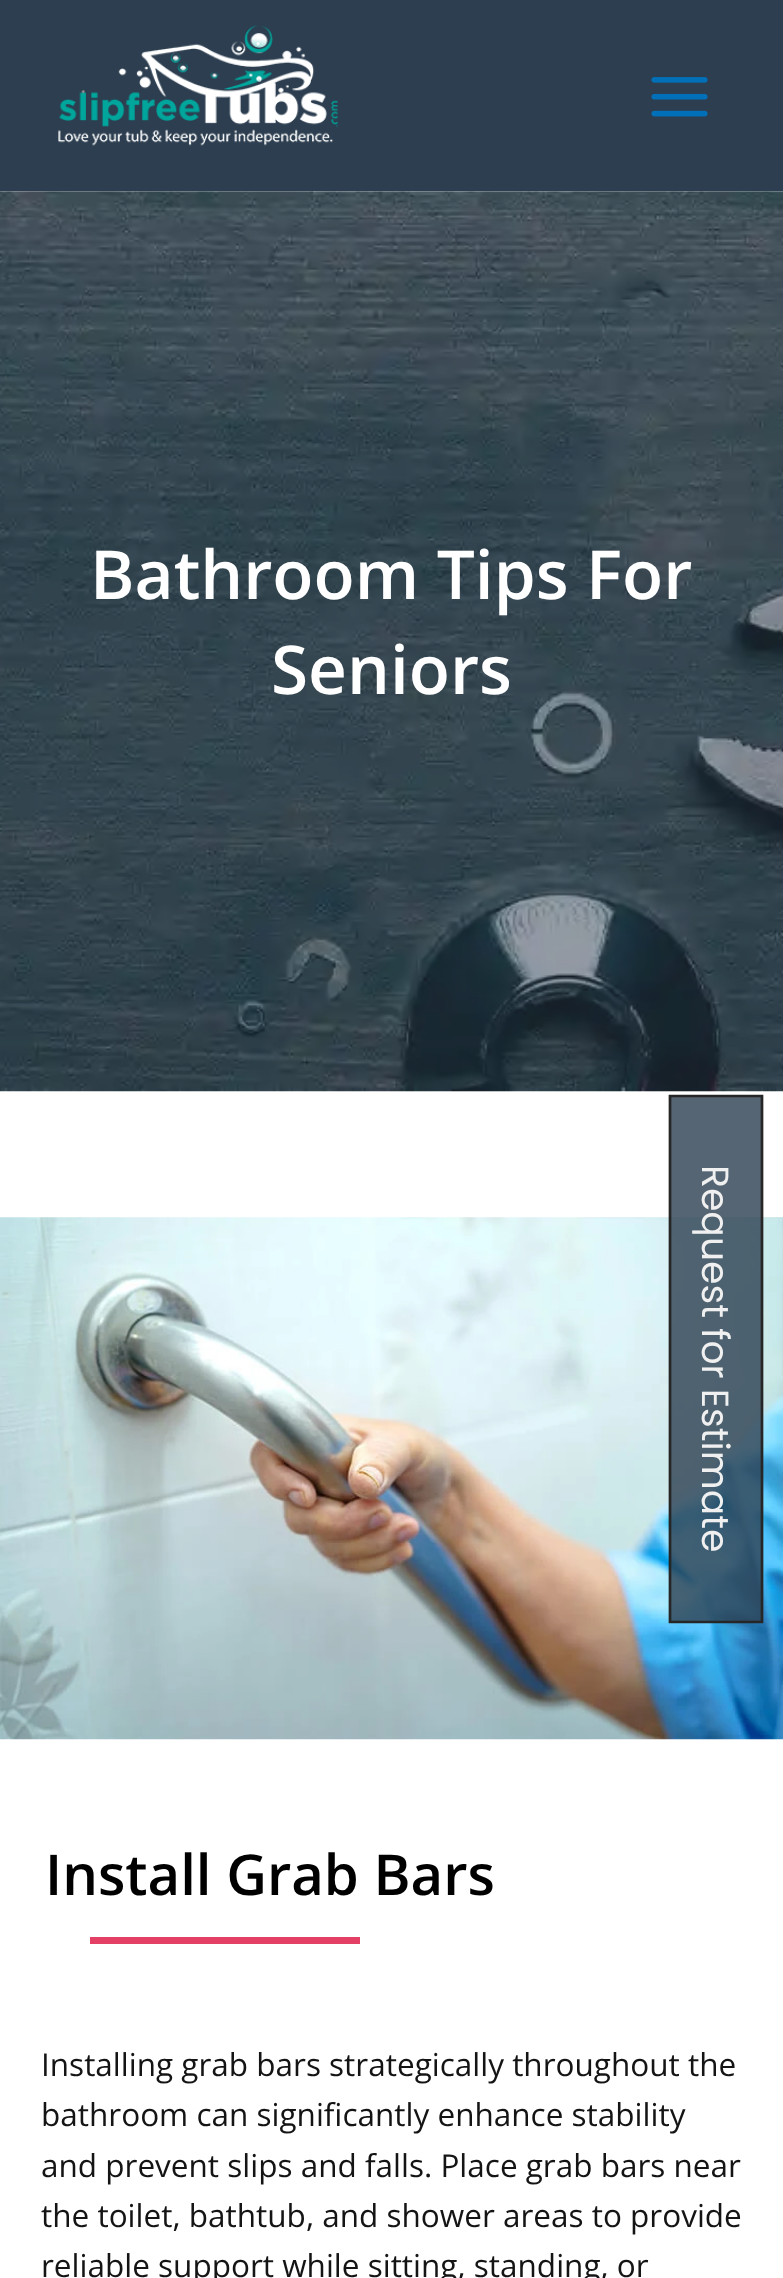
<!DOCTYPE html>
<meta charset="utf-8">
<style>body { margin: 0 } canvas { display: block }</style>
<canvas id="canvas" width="783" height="2278"></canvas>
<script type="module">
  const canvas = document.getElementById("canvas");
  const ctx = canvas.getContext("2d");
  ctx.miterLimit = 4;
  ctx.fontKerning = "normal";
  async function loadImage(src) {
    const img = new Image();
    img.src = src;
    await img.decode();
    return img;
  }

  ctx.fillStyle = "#ffffff";
  ctx.fillRect(0, 0, 783, 2278);
  ctx.fillStyle = "#2c3e50";
  ctx.fillRect(0, 0, 783, 191);
  ctx.drawImage(await loadImage("img1.png"), 58, 25, 280, 121);
  ctx.drawImage(await loadImage("img2.png"), 651, 77, 57, 40);
  ctx.drawImage(await loadImage("img3.png"), 0, 191, 783, 901);
  ctx.font = "600 67.5px Open Sans";
  ctx.fillStyle = "#ffffff";
  ctx.fillText("Bathroom Tips For", 90, 599);
  ctx.fillText("Seniors", 271, 694);
  ctx.drawImage(await loadImage("img4.png"), 0, 1217, 783, 523);
  ctx.font = "600 56.25px Open Sans";
  ctx.fillStyle = "#000000";
  ctx.fillText("Install Grab Bars", 45, 1895);
  ctx.fillStyle = "#e44065";
  ctx.fillRect(90, 1937, 270, 7);
  ctx.font = "31.5px Open Sans";
  ctx.fillStyle = "#141414";
  ctx.fillText("Installing grab bars strategically throughout the", 41, 2076);
  ctx.fillText("bathroom can significantly enhance stability", 41, 2126);
  ctx.fillText("and prevent slips and falls. Place grab bars near", 41, 2177);
  ctx.fillText("the toilet, bathtub, and shower areas to provide", 41, 2227);
  ctx.fillText("reliable support while sitting, standing, or", 41, 2277);
  ctx.fillStyle = "rgba(44, 62, 80, 0.8)";
  ctx.fillRect(671, 1097, 90, 524);
  ctx.beginPath();
  ctx.moveTo(762, 1096);
  ctx.lineTo(762, 1622);
  ctx.lineTo(670, 1622);
  ctx.lineTo(670, 1096);
  ctx.closePath();
  ctx.strokeStyle = "#262626";
  ctx.lineWidth = 2.7;
  ctx.stroke();
  ctx.font = "37.75px Poppins";
  ctx.fillStyle = "#f0f0f0";
  ctx.save();
  ctx.translate(702, 1165);
  ctx.rotate(90 * Math.PI / 180);
  ctx.fillText("Request for Estimate", 0, 0);
  ctx.restore();
</script>
